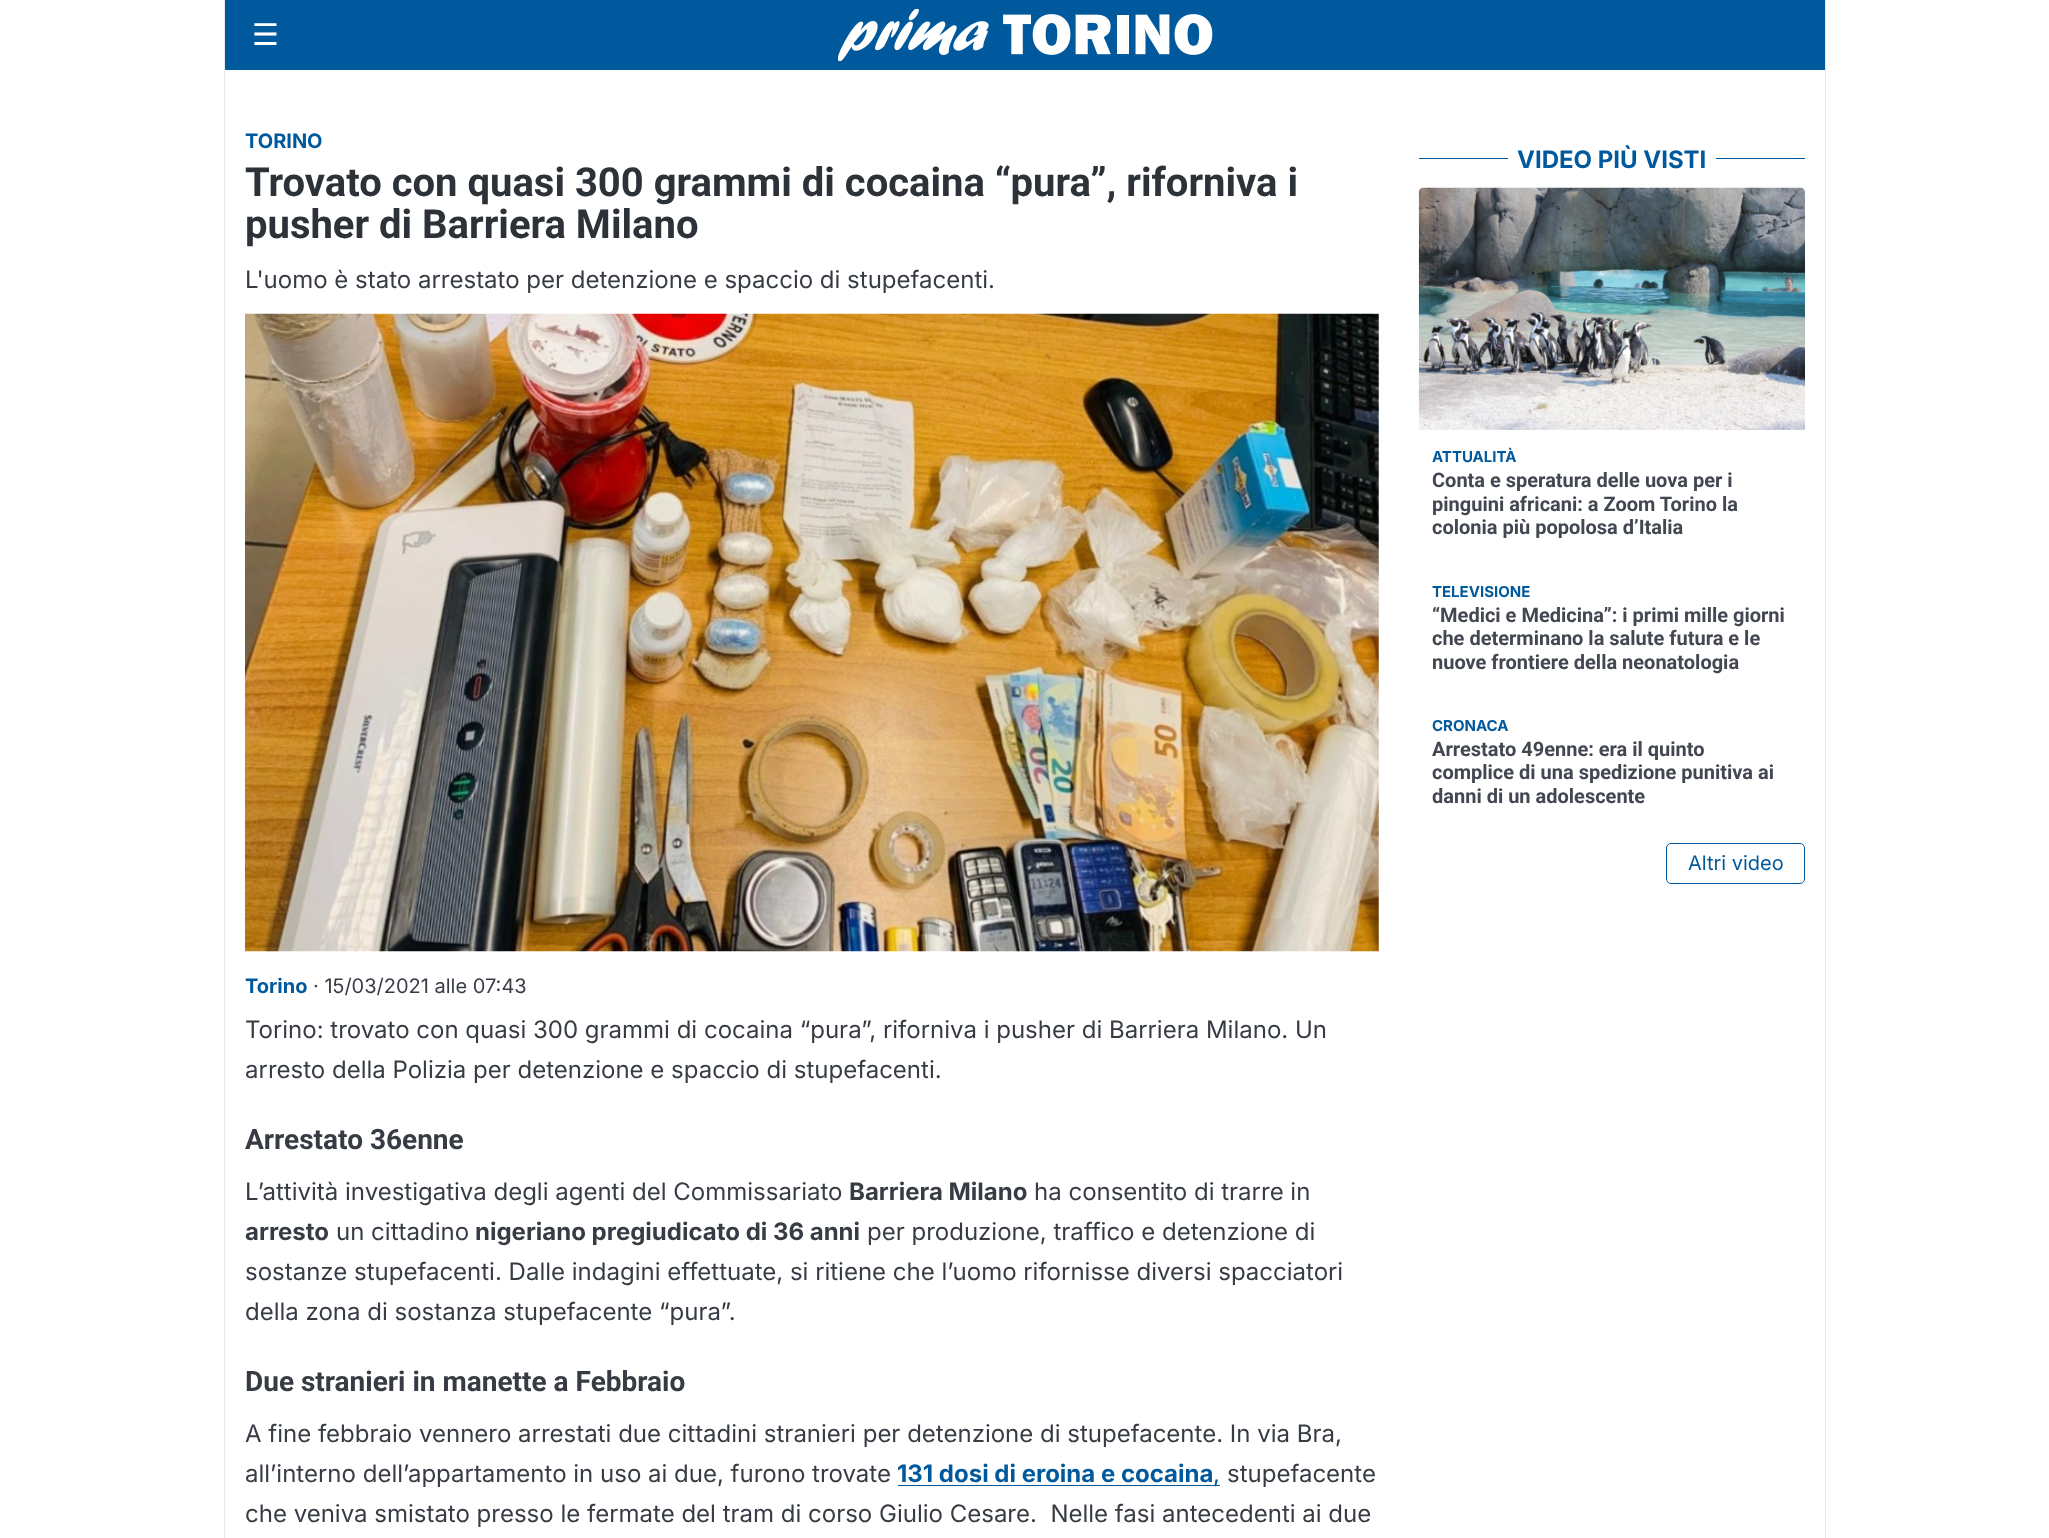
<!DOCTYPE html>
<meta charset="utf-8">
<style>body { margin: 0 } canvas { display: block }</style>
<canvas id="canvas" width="2049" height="1538"></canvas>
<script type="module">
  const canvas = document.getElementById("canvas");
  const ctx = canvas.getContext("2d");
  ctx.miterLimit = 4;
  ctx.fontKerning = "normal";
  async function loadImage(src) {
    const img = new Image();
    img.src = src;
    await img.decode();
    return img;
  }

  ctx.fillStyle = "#ffffff";
  ctx.fillRect(0, 0, 2049, 1538);
  ctx.fillStyle = "#e7eaf0";
  ctx.fillRect(1825, 0, 1, 90);
  ctx.fillRect(224, 0, 1, 90);
  ctx.fillStyle = "#00599c";
  ctx.fillRect(225, 0, 1600, 70);
  ctx.font = "30px DejaVu Sans";
  ctx.fillStyle = "#ffffff";
  ctx.fillText("☰", 252, 45);
  ctx.drawImage(await loadImage("img1.png"), 838, 9, 375, 52);
  ctx.fillStyle = "#e7eaf0";
  ctx.beginPath();
  ctx.moveTo(226, 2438);
  ctx.lineTo(1826, 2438);
  ctx.lineTo(1826, 90);
  ctx.lineTo(1825, 90);
  ctx.lineTo(1825, 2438);
  ctx.closePath();
  ctx.fill();
  ctx.beginPath();
  ctx.moveTo(224, 90);
  ctx.lineTo(224, 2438);
  ctx.lineTo(1824, 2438);
  ctx.lineTo(225, 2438);
  ctx.lineTo(225, 90);
  ctx.closePath();
  ctx.fill();
  ctx.font = "bold 20px Inter";
  ctx.fillStyle = "#00599c";
  ctx.fillText("TORINO", 245, 148);
  ctx.font = "bold 40px Roboto";
  ctx.fillStyle = "#2d3138";
  ctx.fillText("Trovato con quasi 300 grammi di cocaina “pura”, riforniva i", 245, 196);
  ctx.fillText("pusher di Barriera Milano", 245, 238);
  ctx.font = "24px Inter";
  ctx.fillStyle = "#373c44";
  ctx.fillText("L'uomo è stato arrestato per detenzione e spaccio di stupefacenti.", 245, 288);
  ctx.drawImage(await loadImage("img2.png"), 245, 313, 1134, 639);
  ctx.font = "bold 20px Inter";
  ctx.fillStyle = "#00599c";
  ctx.fillText("Torino", 245, 993);
  ctx.font = "20px Inter";
  ctx.fillStyle = "#373c44";
  ctx.fillText("· 15/03/2021 alle 07:43", 313, 993);
  ctx.font = "24px Inter";
  ctx.fillText("Torino: trovato con quasi 300 grammi di cocaina “pura”, riforniva i pusher di Barriera Milano. Un", 245, 1038);
  ctx.fillText("arresto della Polizia per detenzione e spaccio di stupefacenti.", 245, 1078);
  ctx.font = "bold 28px Roboto";
  ctx.fillText("Arrestato 36enne", 245, 1149);
  ctx.font = "24px Inter";
  ctx.fillText("L’attività investigativa degli agenti del Commissariato", 245, 1200);
  ctx.font = "bold 24px Inter";
  ctx.fillText("Barriera Milano", 849, 1200);
  ctx.font = "24px Inter";
  ctx.fillText("ha consentito di trarre in", 1034, 1200);
  ctx.font = "bold 24px Inter";
  ctx.fillText("arresto", 245, 1240);
  ctx.font = "24px Inter";
  ctx.fillText("un cittadino", 336, 1240);
  ctx.font = "bold 24px Inter";
  ctx.fillText("nigeriano pregiudicato di 36 anni", 475, 1240);
  ctx.font = "24px Inter";
  ctx.fillText("per produzione, traffico e detenzione di", 867, 1240);
  ctx.fillText("sostanze stupefacenti. Dalle indagini effettuate, si ritiene che l’uomo rifornisse diversi spacciatori", 245, 1280);
  ctx.fillText("della zona di sostanza stupefacente “pura”.", 245, 1320);
  ctx.font = "bold 28px Roboto";
  ctx.fillText("Due stranieri in manette a Febbraio", 245, 1391);
  ctx.font = "24px Inter";
  ctx.fillText("A fine febbraio vennero arrestati due cittadini stranieri per detenzione di stupefacente. In via Bra,", 245, 1442);
  ctx.fillText("all’interno dell’appartamento in uso ai due, furono trovate", 245, 1482);
  ctx.font = "bold 24px Inter";
  ctx.fillStyle = "#00599c";
  ctx.fillText("131 dosi di eroina e cocaina", 897, 1482);
  ctx.fillRect(898, 1485, 322, 1);
  ctx.font = "24px Inter";
  ctx.fillText(",", 1213, 1482);
  ctx.fillStyle = "#373c44";
  ctx.fillText("stupefacente", 1227, 1482);
  ctx.fillText("che veniva smistato presso le fermate del tram di corso Giulio Cesare.  Nelle fasi antecedenti ai due", 245, 1522);
  ctx.fillStyle = "#00599c";
  ctx.fillRect(1419, 158, 386, 1);
  ctx.fillStyle = "#ffffff";
  ctx.fillRect(1508, 158, 208, 1);
  ctx.font = "bold 24px Inter";
  ctx.fillStyle = "#00599c";
  ctx.fillText("VIDEO PIÙ VISTI", 1517, 168);
  ctx.drawImage(await loadImage("img3.png"), 1418, 187, 387, 243);
  ctx.font = "bold 15px Inter";
  ctx.fillText("ATTUALITÀ", 1432, 462);
  ctx.font = "bold 20px Roboto";
  ctx.fillStyle = "#424751";
  ctx.fillText("Conta e speratura delle uova per i", 1432, 487);
  ctx.fillText("pinguini africani: a Zoom Torino la", 1432, 511);
  ctx.fillText("colonia più popolosa d’Italia", 1432, 534);
  ctx.font = "bold 15px Inter";
  ctx.fillStyle = "#00599c";
  ctx.fillText("TELEVISIONE", 1432, 597);
  ctx.font = "bold 20px Roboto";
  ctx.fillStyle = "#424751";
  ctx.fillText("“Medici e Medicina”: i primi mille giorni", 1432, 622);
  ctx.fillText("che determinano la salute futura e le", 1432, 645);
  ctx.fillText("nuove frontiere della neonatologia", 1432, 669);
  ctx.font = "bold 15px Inter";
  ctx.fillStyle = "#00599c";
  ctx.fillText("CRONACA", 1432, 731);
  ctx.font = "bold 20px Roboto";
  ctx.fillStyle = "#424751";
  ctx.fillText("Arrestato 49enne: era il quinto", 1432, 756);
  ctx.fillText("complice di una spedizione punitiva ai", 1432, 779);
  ctx.fillText("danni di un adolescente", 1432, 803);
  ctx.beginPath();
  ctx.roundRect(1666.5, 843.5, 138, 40, 4.5);
  ctx.strokeStyle = "#00599c";
  ctx.stroke();
  ctx.font = "20px Inter";
  ctx.fillStyle = "#00599c";
  ctx.fillText("Altri video", 1688, 870);
</script>
